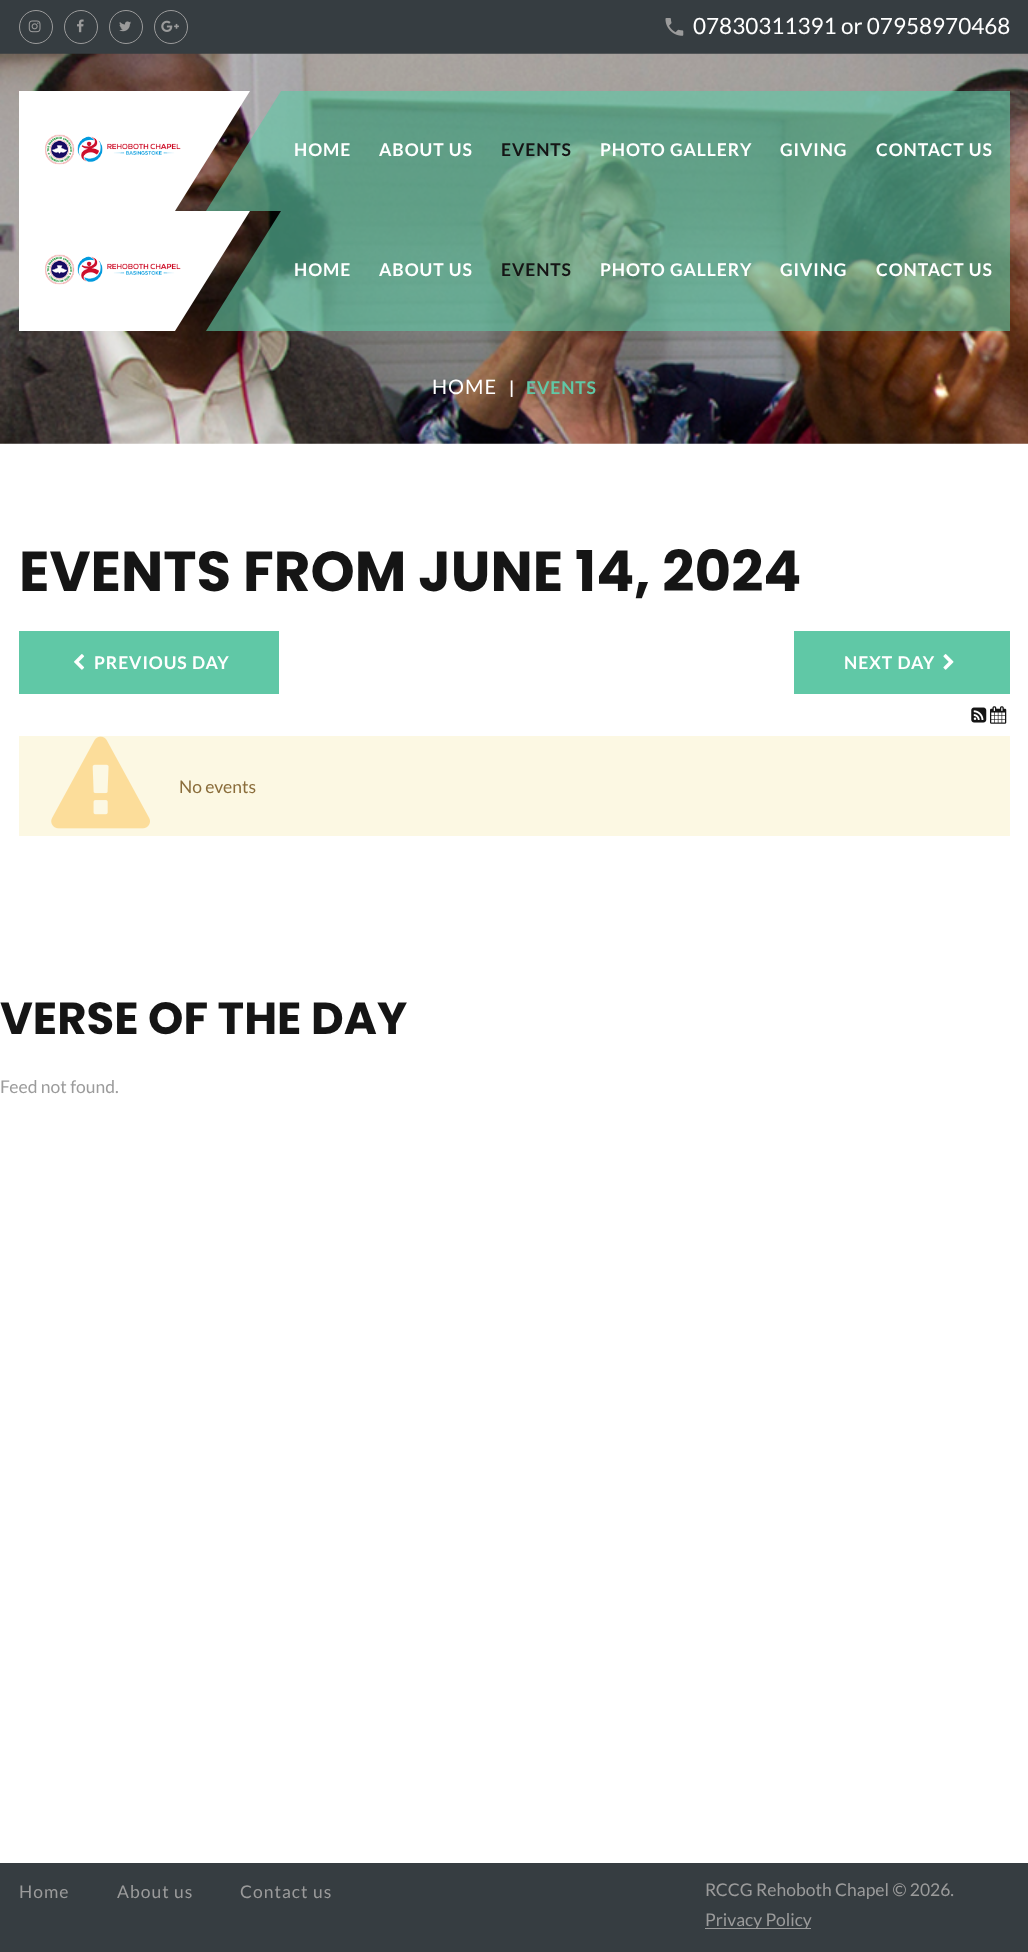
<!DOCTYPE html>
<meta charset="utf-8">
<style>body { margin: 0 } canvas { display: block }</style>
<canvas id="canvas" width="1028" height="1952"></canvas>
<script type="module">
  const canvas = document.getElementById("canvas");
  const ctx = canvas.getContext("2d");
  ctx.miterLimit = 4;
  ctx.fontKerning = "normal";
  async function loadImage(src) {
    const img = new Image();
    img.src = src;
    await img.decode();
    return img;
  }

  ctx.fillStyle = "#ffffff";
  ctx.fillRect(0, 0, 1028, 1952);
  ctx.fillStyle = "#363d41";
  ctx.fillRect(0, 0, 1028, 54);
  ctx.beginPath();
  ctx.arc(36, 27, 16.5, 0, Math.PI * 2);
  ctx.strokeStyle = "#9b9b9b";
  ctx.stroke();
  ctx.drawImage(await loadImage("img1.png"), 28, 20, 13, 13);
  ctx.beginPath();
  ctx.arc(81, 27, 16.5, 0, Math.PI * 2);
  ctx.stroke();
  ctx.drawImage(await loadImage("img2.png"), 77, 19, 7, 14);
  ctx.beginPath();
  ctx.arc(126, 27, 16.5, 0, Math.PI * 2);
  ctx.stroke();
  ctx.drawImage(await loadImage("img3.png"), 119, 21, 12, 11);
  ctx.beginPath();
  ctx.arc(171, 27, 16.5, 0, Math.PI * 2);
  ctx.stroke();
  ctx.drawImage(await loadImage("img4.png"), 161, 20, 18, 12);
  ctx.drawImage(await loadImage("img5.png"), 665, 18, 19, 18);
  ctx.font = "22.5px Lato";
  ctx.fillStyle = "#ffffff";
  ctx.fillText("07830311391 or 07958970468", 693, 34);
  ctx.drawImage(await loadImage("img6.png"), 0, 53, 1028, 391);
  ctx.beginPath();
  ctx.moveTo(19, 91);
  ctx.lineTo(250, 91);
  ctx.lineTo(175, 211);
  ctx.lineTo(19, 211);
  ctx.closePath();
  ctx.fill();
  ctx.drawImage(await loadImage("img7.png"), 45, 134, 136, 31);
  ctx.fillStyle = "rgba(96, 200, 166, 0.62)";
  ctx.beginPath();
  ctx.moveTo(1010, 211);
  ctx.lineTo(206, 211);
  ctx.lineTo(281, 91);
  ctx.lineTo(1010, 91);
  ctx.closePath();
  ctx.fill();
  ctx.letterSpacing = "0.9px";
  ctx.font = "bold 17.5px Lato";
  ctx.fillStyle = "#ffffff";
  ctx.fillText("HOME", 294, 156);
  ctx.fillText("ABOUT US", 379, 156);
  ctx.fillStyle = "#151515";
  ctx.fillText("EVENTS", 501, 156);
  ctx.fillStyle = "#ffffff";
  ctx.fillText("PHOTO GALLERY", 600, 156);
  ctx.fillText("GIVING", 780, 156);
  ctx.fillText("CONTACT US", 876, 156);
  ctx.beginPath();
  ctx.moveTo(19, 211);
  ctx.lineTo(250, 211);
  ctx.lineTo(175, 331);
  ctx.lineTo(19, 331);
  ctx.closePath();
  ctx.fill();
  ctx.drawImage(await loadImage("img7.png"), 45, 254, 136, 31);
  ctx.fillStyle = "rgba(96, 200, 166, 0.62)";
  ctx.beginPath();
  ctx.moveTo(1010, 331);
  ctx.lineTo(206, 331);
  ctx.lineTo(281, 211);
  ctx.lineTo(1010, 211);
  ctx.closePath();
  ctx.fill();
  ctx.fillStyle = "#ffffff";
  ctx.fillText("HOME", 294, 276);
  ctx.fillText("ABOUT US", 379, 276);
  ctx.fillStyle = "#151515";
  ctx.fillText("EVENTS", 501, 276);
  ctx.fillStyle = "#ffffff";
  ctx.fillText("PHOTO GALLERY", 600, 276);
  ctx.fillText("GIVING", 780, 276);
  ctx.fillText("CONTACT US", 876, 276);
  ctx.letterSpacing = "1px";
  ctx.font = "20px Lato";
  ctx.fillText("HOME", 432, 394);
  ctx.letterSpacing = "0.9px";
  ctx.font = "bold 17.5px Lato";
  ctx.fillText("|", 509, 394);
  ctx.fillStyle = "#60c8a6";
  ctx.fillText("EVENTS", 526, 394);
  ctx.letterSpacing = "0px";
  ctx.font = "bold 56.25px Poppins";
  ctx.fillStyle = "#151515";
  ctx.fillText("EVENTS FROM JUNE 14, 2024", 19, 591);
  ctx.fillStyle = "#60c8a6";
  ctx.fillRect(19, 631, 260, 63);
  ctx.drawImage(await loadImage("img8.png"), 74, 654, 11, 16);
  ctx.letterSpacing = "0.9px";
  ctx.font = "bold 17.5px Lato";
  ctx.fillStyle = "#ffffff";
  ctx.fillText("PREVIOUS DAY", 94, 669);
  ctx.fillStyle = "#60c8a6";
  ctx.fillRect(794, 631, 216, 63);
  ctx.fillStyle = "#ffffff";
  ctx.fillText("NEXT DAY", 844, 669);
  ctx.drawImage(await loadImage("img9.png"), 943, 654, 11, 16);
  ctx.drawImage(await loadImage("img10.png"), 971, 707, 16, 16);
  ctx.drawImage(await loadImage("img11.png"), 990, 706, 17, 18);
  ctx.fillStyle = "#fcf8e3";
  ctx.fillRect(19, 736, 991, 100);
  ctx.drawImage(await loadImage("img12.png"), 51, 736, 99, 93);
  ctx.letterSpacing = "0px";
  ctx.font = "17.5px Lato";
  ctx.fillStyle = "#8a6d3b";
  ctx.fillText("No events", 179, 793);
  ctx.font = "bold 45px Poppins";
  ctx.fillStyle = "#151515";
  ctx.fillText("VERSE OF THE DAY", 0, 1034);
  ctx.font = "17.5px Lato";
  ctx.fillStyle = "#9b9b9b";
  ctx.fillText("Feed not found.", 0, 1093);
  ctx.fillStyle = "#363d41";
  ctx.fillRect(0, 1863, 1028, 89);
  ctx.letterSpacing = "1px";
  ctx.fillStyle = "#9b9b9b";
  ctx.fillText("Home", 19, 1898);
  ctx.fillText("About us", 117, 1898);
  ctx.fillText("Contact us", 240, 1898);
  ctx.letterSpacing = "0px";
  ctx.fillText("RCCG Rehoboth Chapel © 2026.", 705, 1896);
  ctx.fillRect(705, 1928, 106, 1);
  ctx.fillText("Privacy Policy", 705, 1926);
</script>
